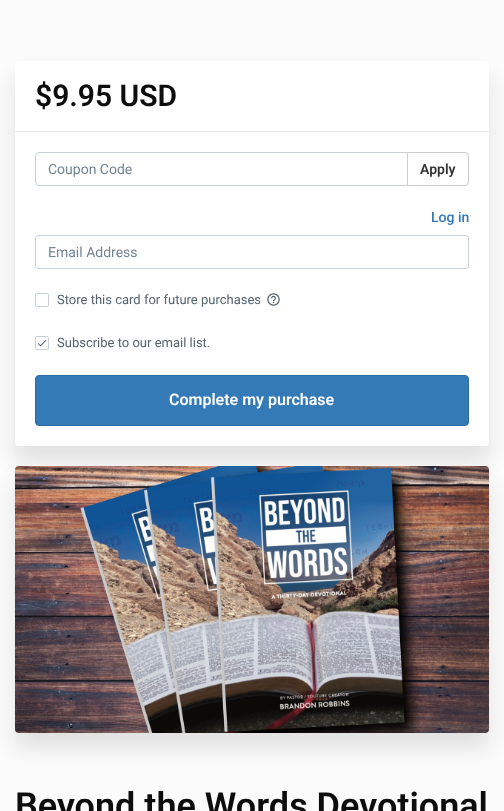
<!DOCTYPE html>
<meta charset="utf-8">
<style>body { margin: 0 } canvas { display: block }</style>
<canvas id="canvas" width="504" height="811"></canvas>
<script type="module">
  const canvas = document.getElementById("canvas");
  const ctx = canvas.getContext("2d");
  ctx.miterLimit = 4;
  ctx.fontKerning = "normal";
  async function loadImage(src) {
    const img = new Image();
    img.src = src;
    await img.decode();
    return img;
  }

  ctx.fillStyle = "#fbfbfb";
  ctx.fillRect(0, 0, 504, 811);
  ctx.fillStyle = "rgba(0, 0, 0, 0.1)";
  ctx.filter = "blur(10px)";
  ctx.beginPath();
  ctx.roundRect(15, 76, 474, 385, 4);
  ctx.fill();
  ctx.filter = "none";
  ctx.fillStyle = "#ffffff";
  ctx.beginPath();
  ctx.roundRect(15, 61, 474, 385, 4);
  ctx.fill();
  ctx.fillStyle = "#e5e9e9";
  ctx.fillRect(15, 131, 474, 1);
  ctx.font = "600 30px Roboto";
  ctx.fillStyle = "#0d0d0d";
  ctx.fillText("$9.95 USD", 35, 106);
  ctx.beginPath();
  ctx.roundRect(35.5, 152.5, 372, 33, [3.5, 0, 0, 3.5]);
  ctx.strokeStyle = "#c7cfd8";
  ctx.stroke();
  ctx.font = "14px Roboto";
  ctx.fillStyle = "#748493";
  ctx.fillText("Coupon Code", 48, 174);
  ctx.fillStyle = "#ffffff";
  ctx.beginPath();
  ctx.roundRect(407.5, 152.5, 61, 33, [0, 3.5, 3.5, 0]);
  ctx.fill();
  ctx.strokeStyle = "#cccccc";
  ctx.stroke();
  ctx.font = "600 14px Roboto";
  ctx.fillStyle = "#333333";
  ctx.fillText("Apply", 420, 174);
  ctx.font = "500 14px Roboto";
  ctx.fillStyle = "#337ab7";
  ctx.fillText("Log in", 431, 222);
  ctx.beginPath();
  ctx.roundRect(35.5, 235.5, 433, 33, 3.5);
  ctx.strokeStyle = "#c7cfd8";
  ctx.stroke();
  ctx.font = "14px Roboto";
  ctx.fillStyle = "#748493";
  ctx.fillText("Email Address", 48, 257);
  ctx.beginPath();
  ctx.roundRect(35.5, 293.5, 13, 13, 1.5);
  ctx.stroke();
  ctx.font = "13px Roboto";
  ctx.fillStyle = "#556370";
  ctx.fillText("Store this card for future purchases", 57, 304);
  ctx.drawImage(await loadImage("img1.png"), 267, 293, 13, 13);
  ctx.beginPath();
  ctx.roundRect(35.5, 336.5, 13, 13, 1.5);
  ctx.stroke();
  ctx.drawImage(await loadImage("img2.png"), 37, 339, 10, 8);
  ctx.fillText("Subscribe to our email list.", 57, 347);
  ctx.fillStyle = "#337ab7";
  ctx.beginPath();
  ctx.roundRect(35.5, 375.5, 433, 50, 3.5);
  ctx.fill();
  ctx.strokeStyle = "#2e6da4";
  ctx.stroke();
  ctx.font = "600 16px Roboto";
  ctx.fillStyle = "#ffffff";
  ctx.fillText("Complete my purchase", 169, 405);
  ctx.fillStyle = "rgba(0, 0, 0, 0.1)";
  ctx.filter = "blur(10px)";
  ctx.beginPath();
  ctx.roundRect(15, 481, 474, 267, 4);
  ctx.fill();
  ctx.filter = "none";
  ctx.drawImage(await loadImage("img3.png"), 15, 466, 474, 267);
  ctx.font = "600 36px Roboto";
  ctx.fillStyle = "#0d0d0d";
  ctx.fillText("Beyond the Words Devotional", 15, 818);
</script>
